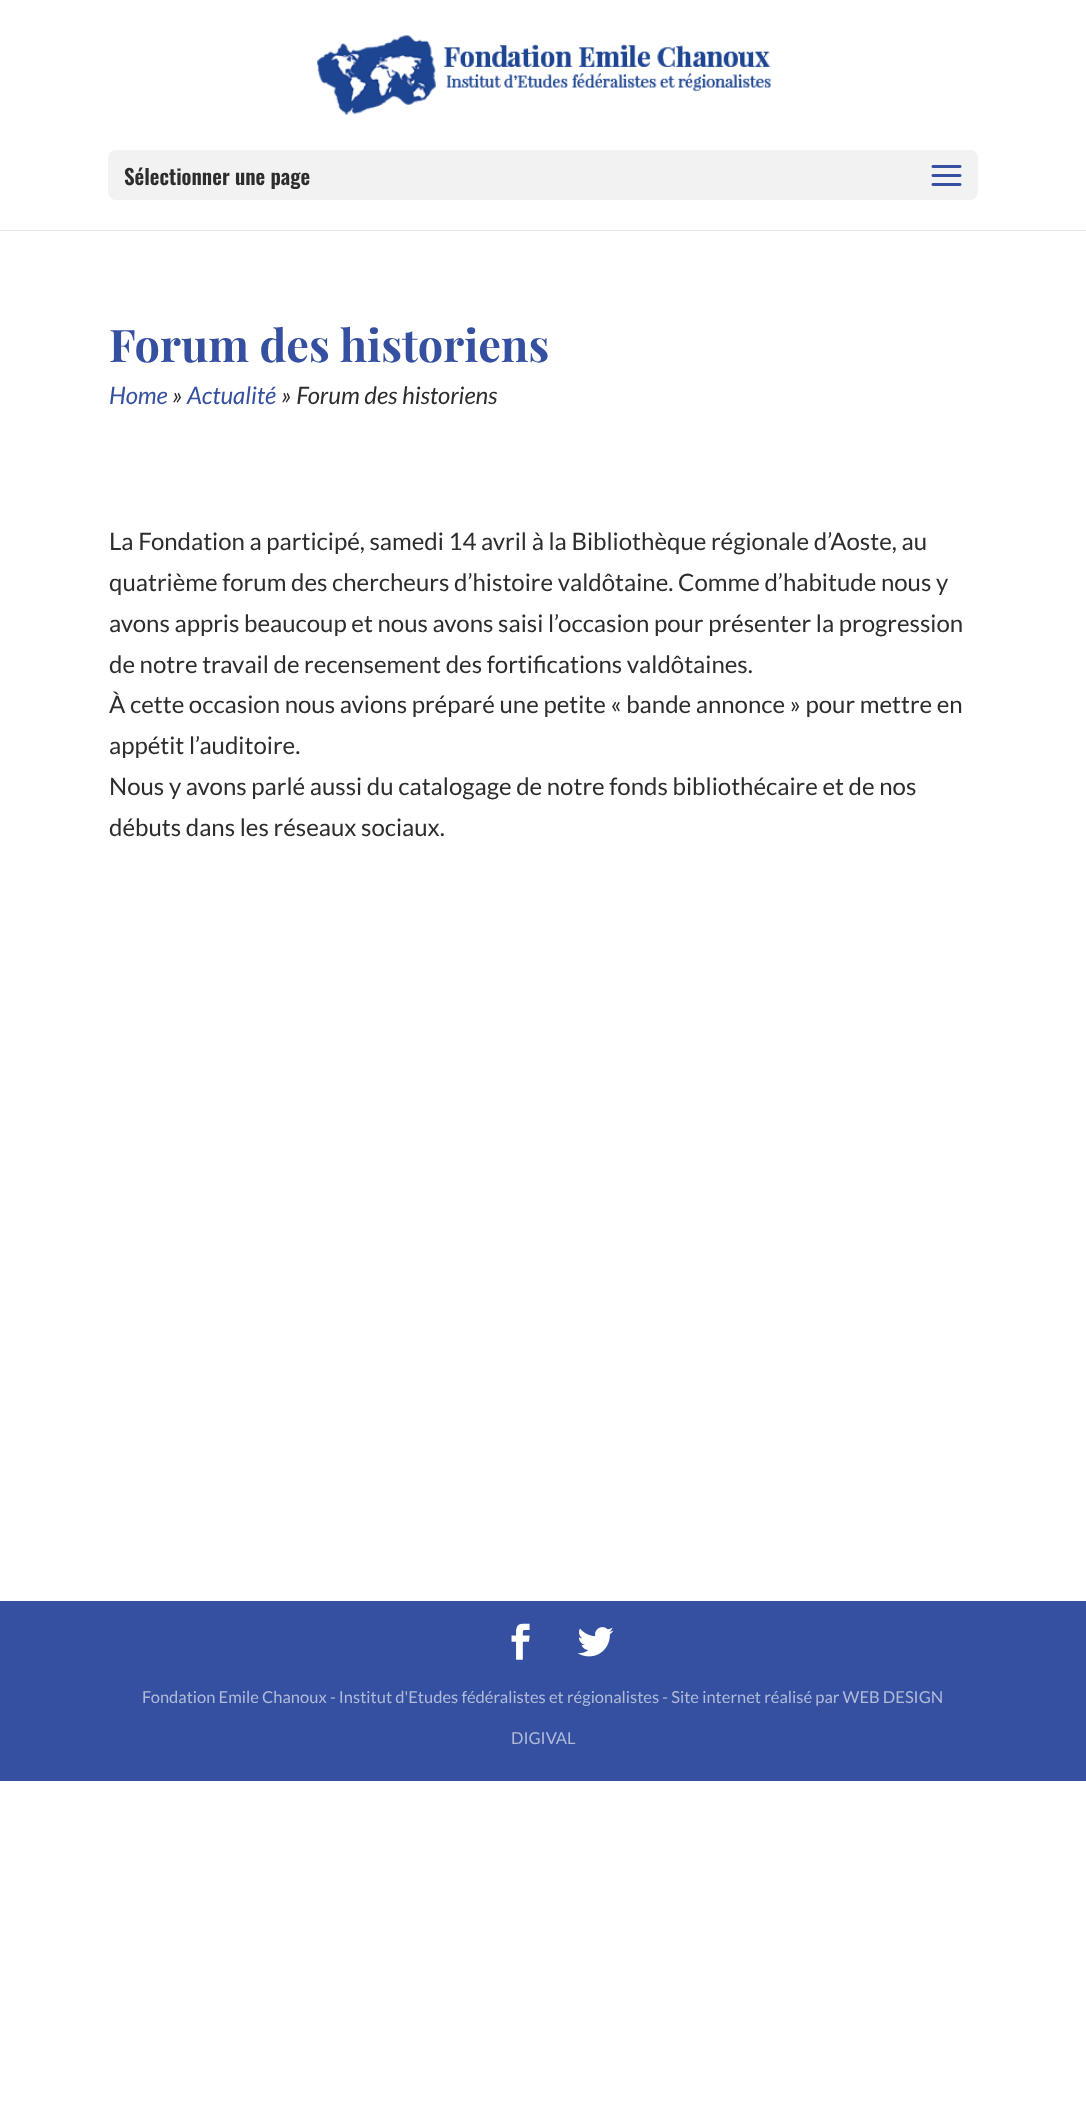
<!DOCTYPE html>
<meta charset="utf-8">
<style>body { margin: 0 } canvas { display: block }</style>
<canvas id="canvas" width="1086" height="2101"></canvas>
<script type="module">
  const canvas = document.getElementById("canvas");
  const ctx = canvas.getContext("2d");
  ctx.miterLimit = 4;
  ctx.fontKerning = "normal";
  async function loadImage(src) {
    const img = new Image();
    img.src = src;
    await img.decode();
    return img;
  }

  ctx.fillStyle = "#ffffff";
  ctx.fillRect(0, 0, 1086, 2101);
  ctx.fillStyle = "#e6e6e6";
  ctx.fillRect(0, 230, 1086, 1);
  ctx.drawImage(await loadImage("img1.png"), 317, 35, 455, 80);
  ctx.fillStyle = "#f2f2f2";
  ctx.beginPath();
  ctx.roundRect(108, 150, 870, 50, 8);
  ctx.fill();
  ctx.font = "600 21px Oswald";
  ctx.fillStyle = "#2d2d2d";
  ctx.fillText("Sélectionner une page", 124, 185);
  ctx.drawImage(await loadImage("img2.png"), 931, 165, 31, 21);
  ctx.font = "bold 45px Playfair Display";
  ctx.fillStyle = "#3550a0";
  ctx.fillText("Forum des historiens", 109, 362);
  ctx.font = "italic 24px Lato";
  ctx.fillText("Home", 109, 404);
  ctx.fillStyle = "#2d2d2d";
  ctx.fillText("»", 172, 404);
  ctx.fillStyle = "#3550a0";
  ctx.fillText("Actualité", 187, 404);
  ctx.fillStyle = "#2d2d2d";
  ctx.fillText("» Forum des historiens", 281, 404);
  ctx.font = "24px Lato";
  ctx.fillText("La Fondation a participé, samedi 14 avril à la Bibliothèque régionale d’Aoste, au", 109, 550);
  ctx.fillText("quatrième forum des chercheurs d’histoire valdôtaine. Comme d’habitude nous y", 109, 591);
  ctx.fillText("avons appris beaucoup et nous avons saisi l’occasion pour présenter la progression", 109, 632);
  ctx.fillText("de notre travail de recensement des fortifications valdôtaines.", 109, 673);
  ctx.fillText("À cette occasion nous avions préparé une petite « bande annonce » pour mettre en", 109, 713);
  ctx.fillText("appétit l’auditoire.", 109, 754);
  ctx.fillText("Nous y avons parlé aussi du catalogage de notre fonds bibliothécaire et de nos", 109, 795);
  ctx.fillText("débuts dans les réseaux sociaux.", 109, 836);
  ctx.fillStyle = "#3550a0";
  ctx.fillRect(0, 1601, 1086, 180);
  ctx.drawImage(await loadImage("img3.png"), 511, 1623, 19, 37);
  ctx.drawImage(await loadImage("img4.png"), 577, 1627, 37, 30);
  ctx.font = "16.5px Lato";
  ctx.fillStyle = "#b0bbda";
  ctx.fillText("Fondation Emile Chanoux - Institut d'Etudes fédéralistes et régionalistes - Site internet réalisé par WEB DESIGN", 142, 1703);
  ctx.fillText("DIGIVAL", 511, 1744);
</script>
